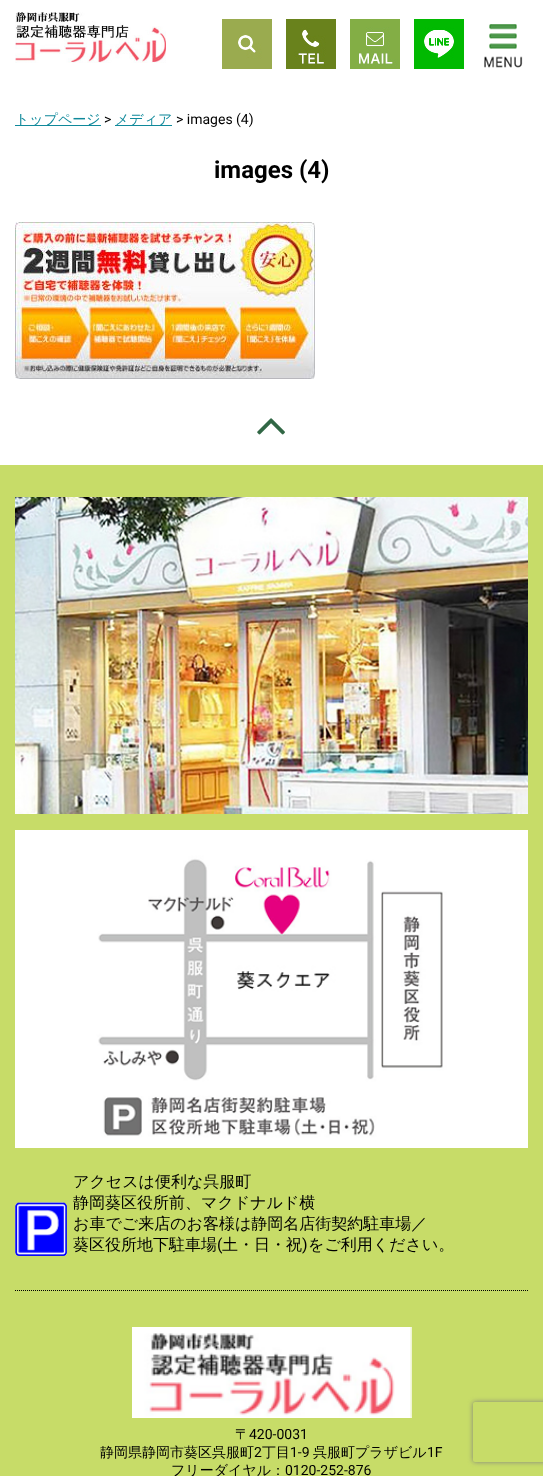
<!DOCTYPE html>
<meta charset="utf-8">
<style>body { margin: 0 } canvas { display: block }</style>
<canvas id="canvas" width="543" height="1476"></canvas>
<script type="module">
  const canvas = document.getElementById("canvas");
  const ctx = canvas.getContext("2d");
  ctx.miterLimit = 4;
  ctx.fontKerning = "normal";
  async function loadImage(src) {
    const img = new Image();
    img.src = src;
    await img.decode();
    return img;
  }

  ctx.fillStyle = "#ffffff";
  ctx.fillRect(0, 0, 543, 1476);
  ctx.drawImage(await loadImage("img1.png"), 15, 12, 151, 51);
  ctx.drawImage(await loadImage("img2.png"), 222, 19, 50, 50);
  ctx.drawImage(await loadImage("img3.png"), 286, 19, 50, 50);
  ctx.drawImage(await loadImage("img4.png"), 350, 19, 50, 50);
  ctx.drawImage(await loadImage("img5.png"), 414, 19, 50, 50);
  ctx.drawImage(await loadImage("img6.png"), 484, 24, 39, 44);
  ctx.fillStyle = "#10899b";
  ctx.fillRect(15, 125, 86, 1);
  ctx.font = "500 14px WenQuanYi Zen Hei";
  ctx.fillText("トップページ", 15, 124);
  ctx.font = "14px Roboto";
  ctx.fillStyle = "#000000";
  ctx.fillText(">", 104, 124);
  ctx.fillStyle = "#10899b";
  ctx.fillRect(115, 125, 57, 1);
  ctx.font = "500 14px WenQuanYi Zen Hei";
  ctx.fillText("メディア", 115, 124);
  ctx.font = "14px Roboto";
  ctx.fillStyle = "#000000";
  ctx.fillText("> images (4)", 176, 124);
  ctx.font = "bold 24px Roboto";
  ctx.fillText("images (4)", 214, 178);
  ctx.drawImage(await loadImage("img7.png"), 15, 222, 300, 157);
  ctx.drawImage(await loadImage("img8.png"), 257, 418, 28, 17);
  ctx.fillStyle = "#c7dc68";
  ctx.fillRect(0, 465, 543, 1011);
  ctx.beginPath();
  ctx.moveTo(15, 1290.5);
  ctx.lineTo(528, 1290.5);
  ctx.strokeStyle = "#000000";
  ctx.setLineDash([1, 1]);
  ctx.stroke();
  ctx.drawImage(await loadImage("img9.png"), 15, 497, 513, 317);
  ctx.drawImage(await loadImage("img10.png"), 15, 830, 513, 318);
  ctx.drawImage(await loadImage("img11.png"), 15, 1202, 52, 54);
  ctx.font = "500 16px WenQuanYi Zen Hei";
  ctx.fillStyle = "#000000";
  ctx.fillText("アクセスは便利な呉服町", 73, 1187);
  ctx.fillText("静岡葵区役所前、マクドナルド横", 73, 1208);
  ctx.fillText("お車でご来店のお客様は静岡名店街契約駐車場／", 73, 1229);
  ctx.fillText("葵区役所地下駐車場", 73, 1250);
  ctx.font = "16px Roboto";
  ctx.fillText("(", 217, 1250);
  ctx.font = "500 16px WenQuanYi Zen Hei";
  ctx.fillText("土・日・祝", 222, 1250);
  ctx.font = "16px Roboto";
  ctx.fillText(")", 302, 1250);
  ctx.font = "500 16px WenQuanYi Zen Hei";
  ctx.fillText("をご利用ください。", 308, 1250);
  ctx.drawImage(await loadImage("img12.png"), 132, 1327, 280, 91);
  ctx.font = "500 14px WenQuanYi Zen Hei";
  ctx.fillText("〒", 235, 1439);
  ctx.font = "14px Roboto";
  ctx.fillText("420-0031", 249, 1439);
  ctx.font = "500 14px WenQuanYi Zen Hei";
  ctx.fillText("静岡県静岡市葵区呉服町", 100, 1457);
  ctx.font = "14px Roboto";
  ctx.fillText("2", 254, 1457);
  ctx.font = "500 14px WenQuanYi Zen Hei";
  ctx.fillText("丁目", 262, 1457);
  ctx.font = "14px Roboto";
  ctx.fillText("1-9", 290, 1457);
  ctx.font = "500 14px WenQuanYi Zen Hei";
  ctx.fillText("呉服町プラザビル", 313, 1457);
  ctx.font = "14px Roboto";
  ctx.fillText("1F", 427, 1457);
  ctx.font = "500 14px WenQuanYi Zen Hei";
  ctx.fillText("フリーダイヤル：", 171, 1475);
  ctx.font = "14px Roboto";
  ctx.fillText("0120-252-876", 285, 1475);
  ctx.save();
  ctx.beginPath();
  ctx.moveTo(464, 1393);
  ctx.lineTo(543, 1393);
  ctx.lineTo(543, 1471);
  ctx.lineTo(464, 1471);
  ctx.closePath();
  ctx.moveTo(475, 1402);
  ctx.lineTo(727, 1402);
  ctx.bezierCurveTo(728, 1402, 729, 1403, 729, 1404);
  ctx.lineTo(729, 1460);
  ctx.bezierCurveTo(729, 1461, 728, 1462, 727, 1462);
  ctx.lineTo(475, 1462);
  ctx.bezierCurveTo(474, 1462, 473, 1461, 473, 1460);
  ctx.lineTo(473, 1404);
  ctx.bezierCurveTo(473, 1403, 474, 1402, 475, 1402);
  ctx.closePath();
  ctx.clip("evenodd");
  ctx.fillStyle = "#808080";
  ctx.filter = "blur(2.5px)";
  ctx.beginPath();
  ctx.roundRect(473, 1402, 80, 60, 2);
  ctx.fill();
  ctx.filter = "none";
  ctx.restore();
</script>
